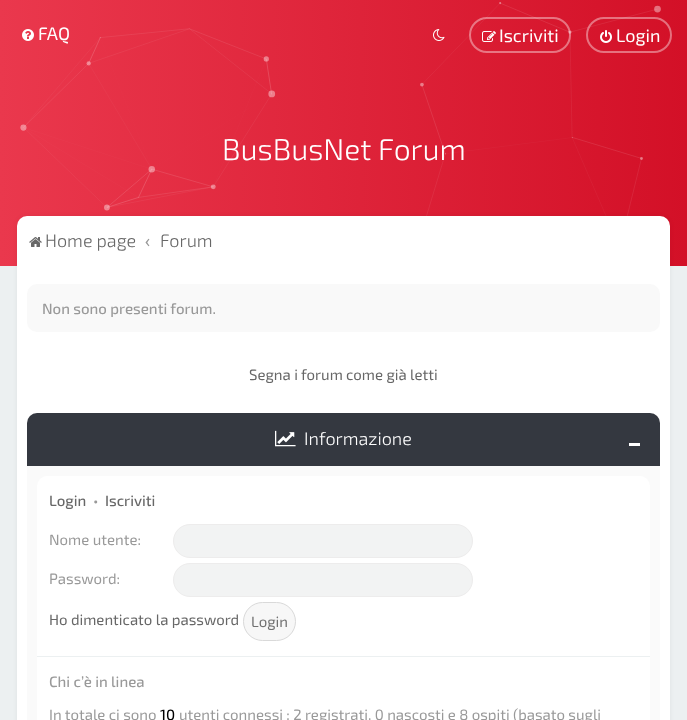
<!DOCTYPE html>
<meta charset="utf-8">
<style>body { margin: 0 } canvas { display: block }</style>
<canvas id="canvas" width="687" height="720"></canvas>
<script type="module">
  const canvas = document.getElementById("canvas");
  const ctx = canvas.getContext("2d");
  ctx.miterLimit = 4;
  ctx.fontKerning = "normal";
  async function loadImage(src) {
    const img = new Image();
    img.src = src;
    await img.decode();
    return img;
  }
  let gradient;

  ctx.fillStyle = "#ecf0f1";
  ctx.fillRect(0, 0, 687, 720);
  gradient = ctx.createLinearGradient(0, 133, 687, 133);
  gradient.addColorStop(0, "#ea384d");
  gradient.addColorStop(1, "#d31027");
  ctx.fillStyle = gradient;
  ctx.fillRect(0, 0, 687, 266);
  ctx.drawImage(await loadImage("img5.png"), 20, 2, 641, 214);
  ctx.drawImage(await loadImage("img1.png"), 22, 29, 12, 12);
  ctx.font = "18px 'Exo 2'";
  ctx.fillStyle = "#ffffff";
  ctx.fillText("FAQ", 38, 40);
  ctx.drawImage(await loadImage("img2.png"), 433, 29, 12, 12);
  ctx.beginPath();
  ctx.roundRect(470, 18, 100, 34, 17);
  ctx.strokeStyle = "rgba(255, 255, 255, 0.4)";
  ctx.lineWidth = 2;
  ctx.stroke();
  ctx.drawImage(await loadImage("img3.png"), 482, 31, 14, 11);
  ctx.fillText("Iscriviti", 499, 42);
  ctx.beginPath();
  ctx.roundRect(587, 18, 84, 34, 17);
  ctx.stroke();
  ctx.drawImage(await loadImage("img4.png"), 600, 30, 12, 13);
  ctx.fillText("Login", 616, 42);
  ctx.font = "300 30px 'Exo 2'";
  ctx.fillText("BusBusNet Forum", 222, 160);
  ctx.fillStyle = "rgba(0, 0, 0, 0.05)";
  ctx.filter = "blur(2.5px)";
  ctx.beginPath();
  ctx.roundRect(17, 216, 653, 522, 10);
  ctx.fill();
  ctx.filter = "none";
  ctx.fillStyle = "#ffffff";
  ctx.beginPath();
  ctx.roundRect(17, 216, 653, 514, 10);
  ctx.fill();
  ctx.drawImage(await loadImage("img6.png"), 29, 237, 13, 10);
  ctx.font = "300 18px 'Exo 2'";
  ctx.fillStyle = "#676767";
  ctx.fillText("Home page", 45, 247);
  ctx.font = "500 18px 'Exo 2'";
  ctx.fillStyle = "#999999";
  ctx.fillText("‹", 145, 247);
  ctx.font = "300 18px 'Exo 2'";
  ctx.fillStyle = "#676767";
  ctx.fillText("Forum", 160, 247);
  ctx.fillStyle = "#f9f9f9";
  ctx.beginPath();
  ctx.roundRect(27, 284, 633, 48, 10);
  ctx.fill();
  ctx.font = "500 15px 'Exo 2'";
  ctx.fillStyle = "#999999";
  ctx.fillText("Non sono presenti forum.", 42, 314);
  ctx.font = "15px 'Exo 2'";
  ctx.fillStyle = "#676767";
  ctx.fillText("Segna i forum come già letti", 249, 380);
  ctx.fillStyle = "#fafafa";
  ctx.beginPath();
  ctx.roundRect(27, 413, 633, 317, 10);
  ctx.fill();
  ctx.fillStyle = "#343840";
  ctx.beginPath();
  ctx.roundRect(27, 413, 633, 53, [10, 10, 0, 0]);
  ctx.fill();
  ctx.drawImage(await loadImage("img7.png"), 275, 430, 21, 17);
  ctx.font = "300 18px 'Exo 2'";
  ctx.fillStyle = "#ffffff";
  ctx.fillText("Informazione", 304, 445);
  ctx.fillRect(629, 443, 11, 3);
  ctx.beginPath();
  ctx.roundRect(37, 476, 613, 181, [10, 10, 0, 0]);
  ctx.fill();
  ctx.fillStyle = "#ecf0f1";
  ctx.fillRect(37, 656, 613, 1);
  ctx.font = "500 15px 'Exo 2'";
  ctx.fillStyle = "#676767";
  ctx.fillText("Login", 49, 506);
  ctx.fillStyle = "#999999";
  ctx.fillText("•", 93, 506);
  ctx.fillStyle = "#676767";
  ctx.fillText("Iscriviti", 105, 506);
  ctx.font = "15px 'Exo 2'";
  ctx.fillStyle = "#999999";
  ctx.fillText("Nome utente:", 49, 545);
  ctx.fillStyle = "#f2f3f3";
  ctx.beginPath();
  ctx.roundRect(173.5, 524.5, 299, 33, 16.5);
  ctx.fill();
  ctx.strokeStyle = "#edecec";
  ctx.lineWidth = 1;
  ctx.stroke();
  ctx.fillStyle = "#999999";
  ctx.fillText("Password:", 49, 584);
  ctx.fillStyle = "#f2f3f3";
  ctx.beginPath();
  ctx.roundRect(173.5, 563.5, 299, 33, 16.5);
  ctx.fill();
  ctx.stroke();
  ctx.fillStyle = "#676767";
  ctx.fillText("Ho dimenticato la password", 49, 625);
  ctx.fillStyle = "#f7f7f7";
  ctx.beginPath();
  ctx.roundRect(243.5, 602.5, 52, 38, 19);
  ctx.fill();
  ctx.strokeStyle = "#d9d9d9";
  ctx.stroke();
  ctx.fillStyle = "#717171";
  ctx.fillText("Login", 251, 627);
  ctx.fillStyle = "#ffffff";
  ctx.fillRect(37, 657, 613, 63);
  ctx.font = "500 15px 'Exo 2'";
  ctx.fillStyle = "#999999";
  ctx.fillText("Chi c’è in linea", 49, 687);
  ctx.font = "15px 'Exo 2'";
  ctx.fillText("In totale ci sono", 49, 720);
  ctx.font = "500 15px 'Exo 2'";
  ctx.fillStyle = "#000000";
  ctx.fillText("10", 160, 720);
  ctx.font = "15px 'Exo 2'";
  ctx.fillStyle = "#999999";
  ctx.fillText("utenti connessi : 2 registrati, 0 nascosti e 8 ospiti (basato sugli", 179, 720);
</script>
